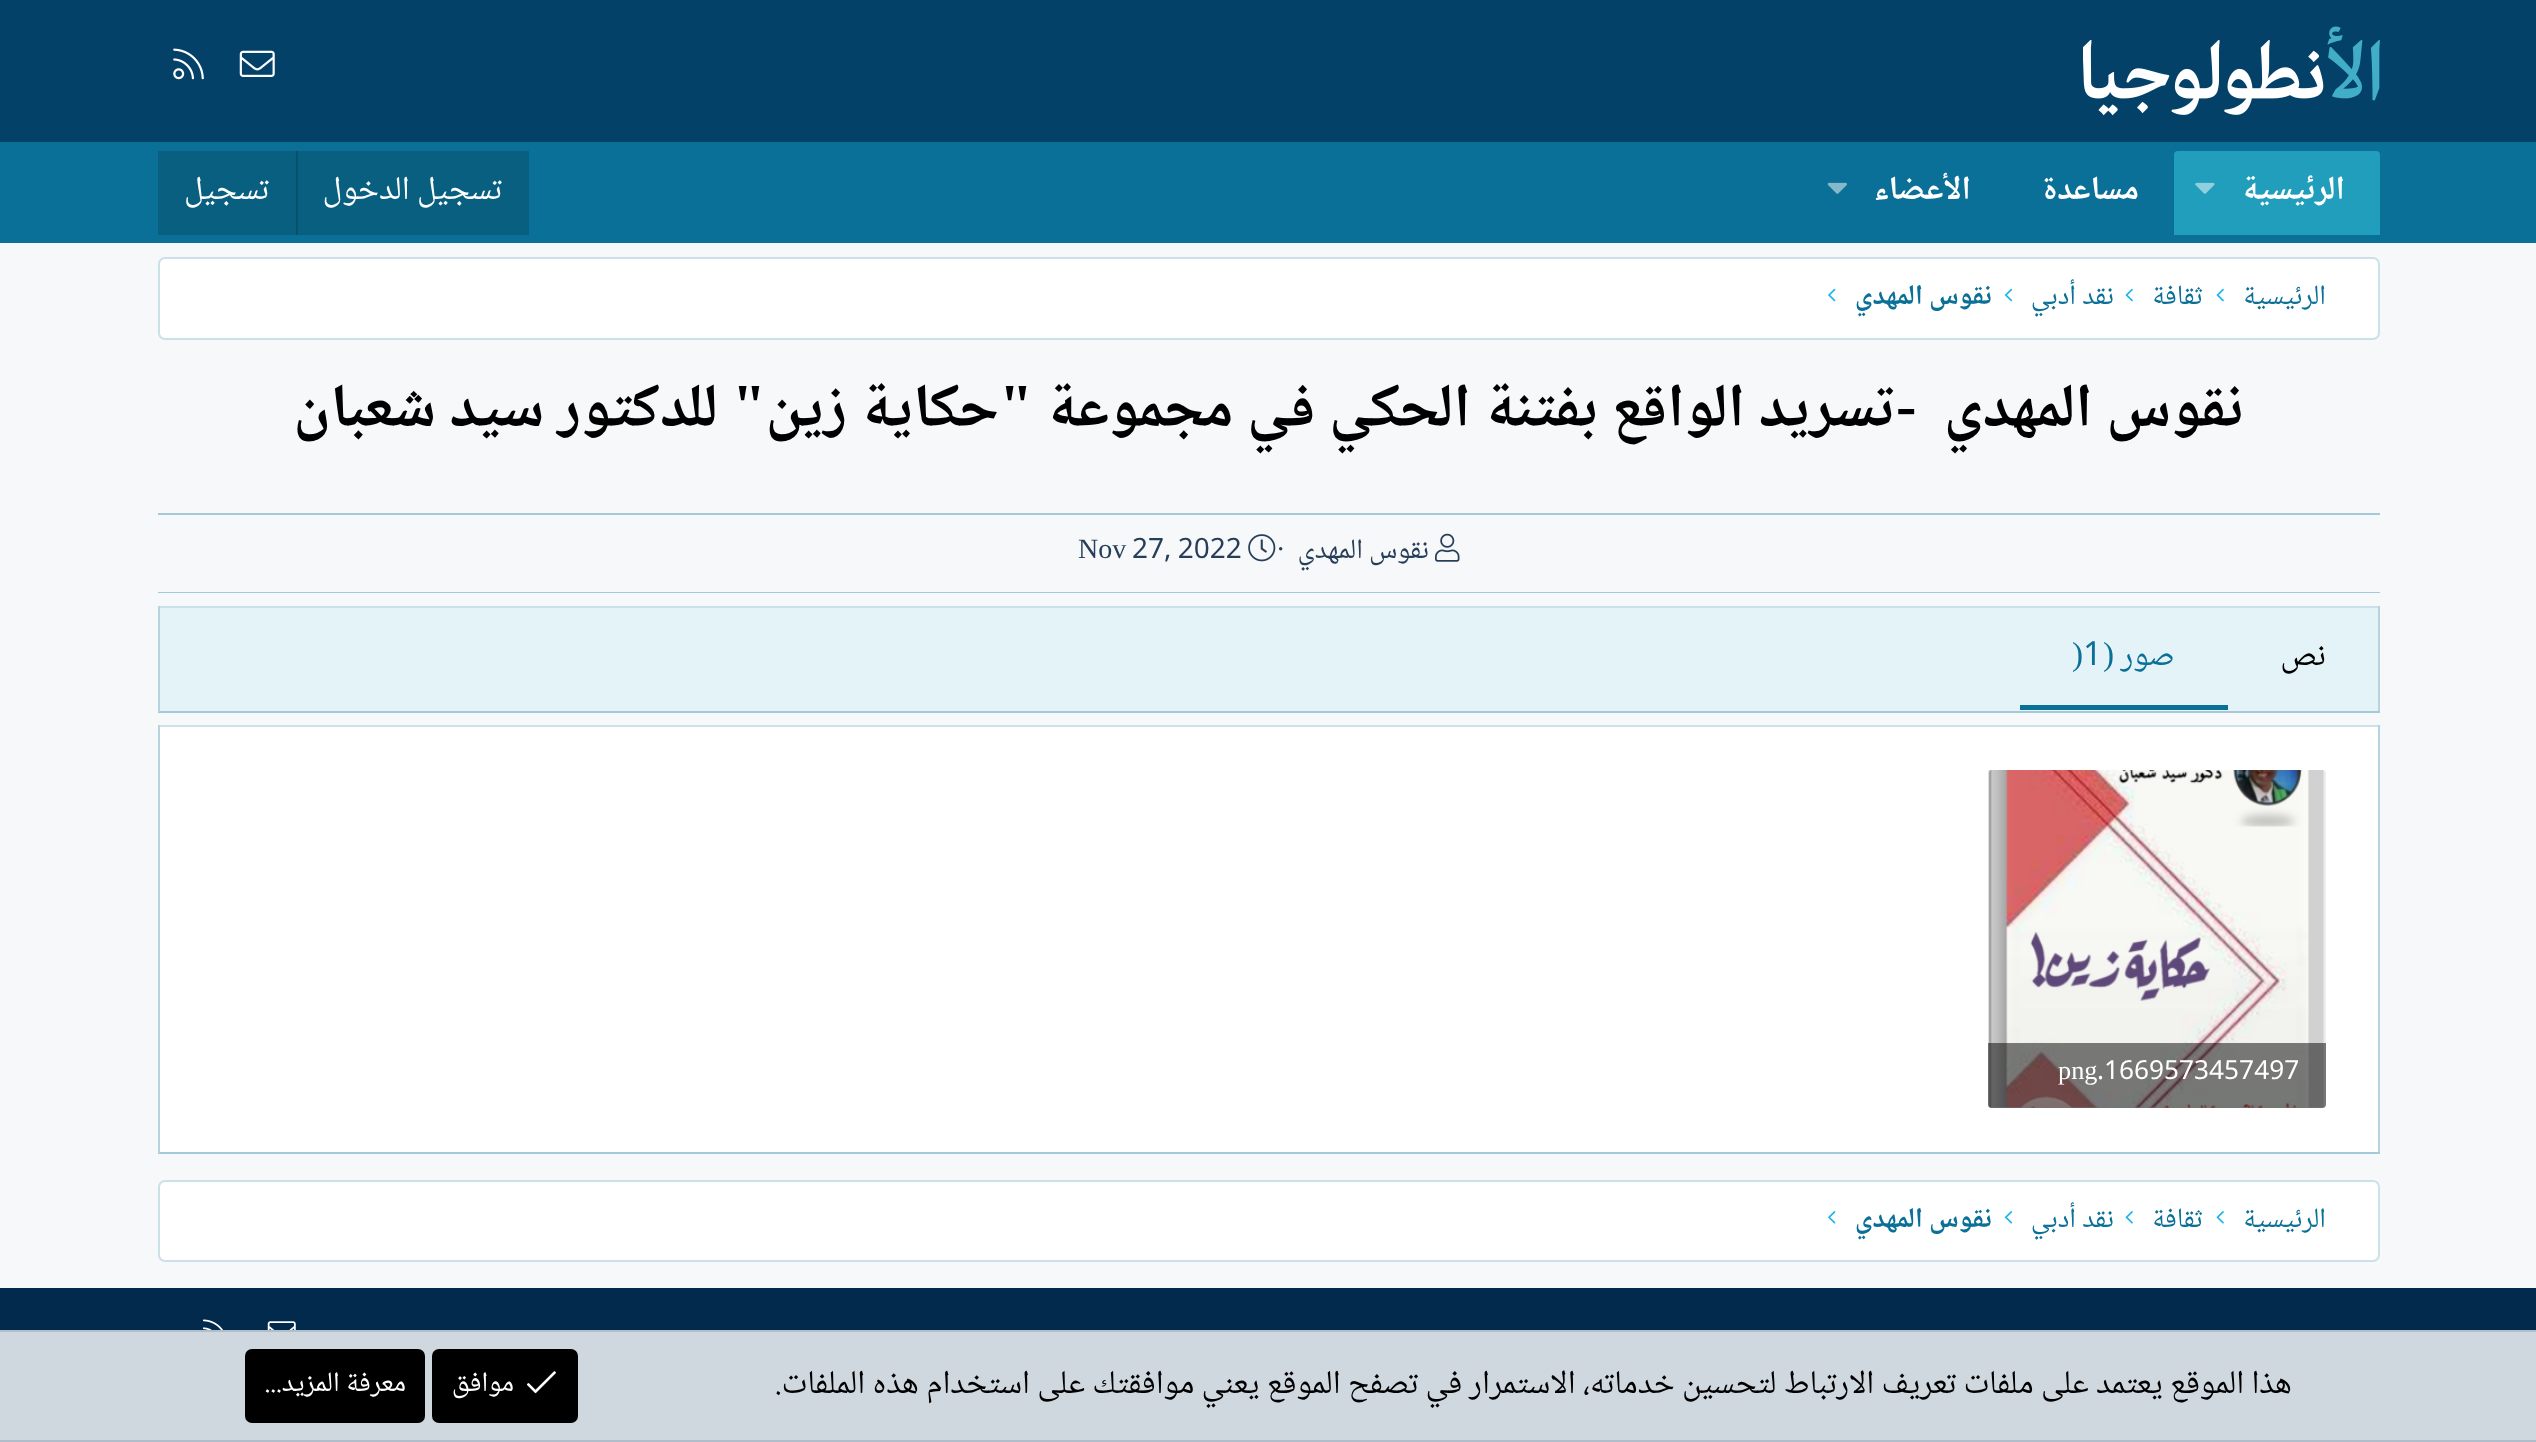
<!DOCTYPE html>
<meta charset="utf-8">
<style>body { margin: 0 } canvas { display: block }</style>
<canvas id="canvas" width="2536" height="1442"></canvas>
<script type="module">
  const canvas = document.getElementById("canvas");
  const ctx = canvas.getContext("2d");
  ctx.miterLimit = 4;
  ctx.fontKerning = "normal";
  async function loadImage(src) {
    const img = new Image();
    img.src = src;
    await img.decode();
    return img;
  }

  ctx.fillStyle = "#f6f8fa";
  ctx.fillRect(0, 0, 2536, 1442);
  ctx.fillStyle = "#034169";
  ctx.fillRect(0, 0, 2536, 142);
  ctx.drawImage(await loadImage("img1.png"), 2083, 26, 297, 90);
  ctx.drawImage(await loadImage("img2.png"), 239, 50, 36, 27);
  ctx.drawImage(await loadImage("img3.png"), 173, 48, 31, 32);
  ctx.fillStyle = "#0b7097";
  ctx.fillRect(0, 142, 2536, 101);
  ctx.fillStyle = "#219ebc";
  ctx.beginPath();
  ctx.roundRect(2174, 151, 206, 84, [4, 4, 0, 0]);
  ctx.fill();
  ctx.direction = "rtl";
  ctx.font = "bold 33.25px Noto Naskh Arabic";
  ctx.fillStyle = "#ffffff";
  ctx.fillText("الرئيسية", 2345, 199);
  ctx.drawImage(await loadImage("img4.png"), 2195, 182, 20, 12);
  ctx.fillText("مساعدة", 2139, 199);
  ctx.fillText("الأعضاء", 1971, 199);
  ctx.drawImage(await loadImage("img5.png"), 1827, 182, 20, 12);
  ctx.fillStyle = "#095f80";
  ctx.fillRect(158, 151, 371, 84);
  ctx.font = "33.25px Noto Naskh Arabic";
  ctx.fillStyle = "#ffffff";
  ctx.fillText("تسجيل الدخول", 502, 199);
  ctx.fillStyle = "#08516d";
  ctx.fillRect(296, 151, 2, 84);
  ctx.fillStyle = "#ffffff";
  ctx.fillText("تسجيل", 269, 199);
  ctx.beginPath();
  ctx.roundRect(159, 258, 2220, 81, 6);
  ctx.fill();
  ctx.strokeStyle = "#cbe1e9";
  ctx.lineWidth = 2;
  ctx.stroke();
  ctx.font = "28px Noto Naskh Arabic";
  ctx.fillStyle = "#0b7097";
  ctx.fillText("الرئيسية", 2326, 304);
  ctx.drawImage(await loadImage("img6.png"), 2216, 288, 8, 14);
  ctx.fillText("ثقافة", 2204, 304);
  ctx.drawImage(await loadImage("img6.png"), 2125, 288, 8, 14);
  ctx.fillText("نقد أدبي", 2114, 304);
  ctx.drawImage(await loadImage("img7.png"), 2004, 288, 9, 14);
  ctx.font = "bold 28px Noto Naskh Arabic";
  ctx.fillText("نقوس المهدي", 1992, 304);
  ctx.drawImage(await loadImage("img8.png"), 1828, 288, 8, 14);
  ctx.font = "bold 61.25px Noto Naskh Arabic";
  ctx.fillStyle = "#000000";
  ctx.fillText("نقوس المهدي", 2244, 426);
  ctx.fillText("تسريد الواقع بفتنة الحكي في مجموعة", 1896, 426);
  ctx.font = "bold 61.25px Liberation Serif";
  ctx.fillText("\"", 1033, 426);
  ctx.font = "bold 61.25px Noto Naskh Arabic";
  ctx.fillText("حكاية زين", 999, 426);
  ctx.font = "bold 61.25px Liberation Serif";
  ctx.fillText("\"", 766, 426);
  ctx.font = "bold 61.25px Noto Naskh Arabic";
  ctx.fillText("للدكتور سيد شعبان", 718, 426);
  ctx.direction = "ltr";
  ctx.font = "bold 61.25px Liberation Serif";
  ctx.fillText("-", 1896, 426);
  ctx.fillStyle = "#a4c9d8";
  ctx.fillRect(158, 513, 2222, 2);
  ctx.fillRect(158, 592, 2222, 1);
  ctx.drawImage(await loadImage("img9.png"), 1435, 533, 25, 29);
  ctx.direction = "rtl";
  ctx.font = "28px Noto Naskh Arabic";
  ctx.fillStyle = "#273e58";
  ctx.fillText("نقوس المهدي", 1429, 558);
  ctx.direction = "ltr";
  ctx.font = "28px Liberation Serif";
  ctx.fillText("·", 1276, 558);
  ctx.drawImage(await loadImage("img10.png"), 1248, 534, 28, 28);
  ctx.font = "28px Noto Naskh Arabic";
  ctx.fillText("27, 2022", 1132, 558);
  ctx.font = "28px Liberation Serif";
  ctx.fillText("Nov", 1078, 558);
  ctx.fillStyle = "#e4f3f7";
  ctx.fillRect(160, 608, 2218, 103);
  ctx.fillStyle = "#cbe1e9";
  ctx.fillRect(158, 606, 2222, 2);
  ctx.fillStyle = "#b6d4e0";
  ctx.fillRect(2378, 606, 2, 106);
  ctx.fillStyle = "#a4c9d8";
  ctx.fillRect(158, 711, 2222, 2);
  ctx.fillStyle = "#b6d4e0";
  ctx.fillRect(158, 606, 2, 106);
  ctx.direction = "rtl";
  ctx.font = "33.25px Noto Naskh Arabic";
  ctx.fillStyle = "#000000";
  ctx.fillText("نص", 2326, 665);
  ctx.fillStyle = "#0b7097";
  ctx.fillRect(2020, 705, 208, 5);
  ctx.fillText("صور", 2175, 665);
  ctx.font = "33.25px Liberation Serif";
  ctx.fillText("(", 2114, 665);
  ctx.direction = "ltr";
  ctx.font = "33.25px Noto Naskh Arabic";
  ctx.fillText("1", 2083, 665);
  ctx.font = "33.25px Liberation Serif";
  ctx.fillText(")", 2072, 665);
  ctx.fillStyle = "#ffffff";
  ctx.fillRect(160, 727, 2218, 425);
  ctx.fillStyle = "#cbe1e9";
  ctx.fillRect(158, 725, 2222, 2);
  ctx.fillStyle = "#b6d4e0";
  ctx.fillRect(2378, 725, 2, 428);
  ctx.fillStyle = "#a4c9d8";
  ctx.fillRect(158, 1152, 2222, 2);
  ctx.fillStyle = "#b6d4e0";
  ctx.fillRect(158, 725, 2, 428);
  ctx.fillStyle = "#e4f3f7";
  ctx.beginPath();
  ctx.roundRect(1988, 770, 338, 338, 4);
  ctx.fill();
  ctx.drawImage(await loadImage("img11.png"), 1988, 770, 338, 338);
  ctx.fillStyle = "rgba(0, 0, 0, 0.5)";
  ctx.beginPath();
  ctx.roundRect(1988, 1043, 338, 65, [0, 0, 4, 4]);
  ctx.fill();
  ctx.font = "26.25px Noto Naskh Arabic";
  ctx.fillStyle = "#ffffff";
  ctx.fillText(".1669573457497", 2097, 1079);
  ctx.font = "26.25px Liberation Serif";
  ctx.fillText("png", 2058, 1079);
  ctx.beginPath();
  ctx.roundRect(159, 1181, 2220, 80, 6);
  ctx.fill();
  ctx.stroke();
  ctx.direction = "rtl";
  ctx.font = "28px Noto Naskh Arabic";
  ctx.fillStyle = "#0b7097";
  ctx.fillText("الرئيسية", 2326, 1227);
  ctx.drawImage(await loadImage("img12.png"), 2216, 1211, 8, 13);
  ctx.fillText("ثقافة", 2204, 1227);
  ctx.drawImage(await loadImage("img12.png"), 2125, 1211, 8, 13);
  ctx.fillText("نقد أدبي", 2114, 1227);
  ctx.drawImage(await loadImage("img13.png"), 2004, 1211, 9, 13);
  ctx.font = "bold 28px Noto Naskh Arabic";
  ctx.fillText("نقوس المهدي", 1992, 1227);
  ctx.drawImage(await loadImage("img14.png"), 1828, 1211, 8, 13);
  ctx.fillStyle = "#022a4c";
  ctx.fillRect(0, 1288, 2536, 42);
  ctx.drawImage(await loadImage("img15.png"), 267, 1321, 29, 9);
  ctx.drawImage(await loadImage("img16.png"), 203, 1319, 20, 11);
  ctx.fillStyle = "#cfd7df";
  ctx.fillRect(0, 1332, 2536, 108);
  ctx.fillStyle = "#b0becb";
  ctx.fillRect(0, 1330, 2536, 2);
  ctx.fillRect(0, 1440, 2536, 2);
  ctx.font = "33.25px Noto Naskh Arabic";
  ctx.fillStyle = "#000000";
  ctx.fillText("هذا الموقع يعتمد على ملفات تعريف الارتباط لتحسين خدماته، الاستمرار في تصفح الموقع يعني موافقتك على استخدام هذه الملفات.", 2292, 1393);
  ctx.beginPath();
  ctx.roundRect(433, 1350, 144, 72, 6);
  ctx.fill();
  ctx.strokeStyle = "#000000";
  ctx.stroke();
  ctx.drawImage(await loadImage("img17.png"), 526, 1371, 30, 23);
  ctx.font = "28px Noto Naskh Arabic";
  ctx.fillStyle = "#ffffff";
  ctx.fillText("موافق", 514, 1391);
  ctx.fillStyle = "#000000";
  ctx.beginPath();
  ctx.roundRect(246, 1350, 178, 72, 6);
  ctx.fill();
  ctx.stroke();
  ctx.fillStyle = "#ffffff";
  ctx.fillText("معرفة المزيد...", 406, 1391);
</script>
